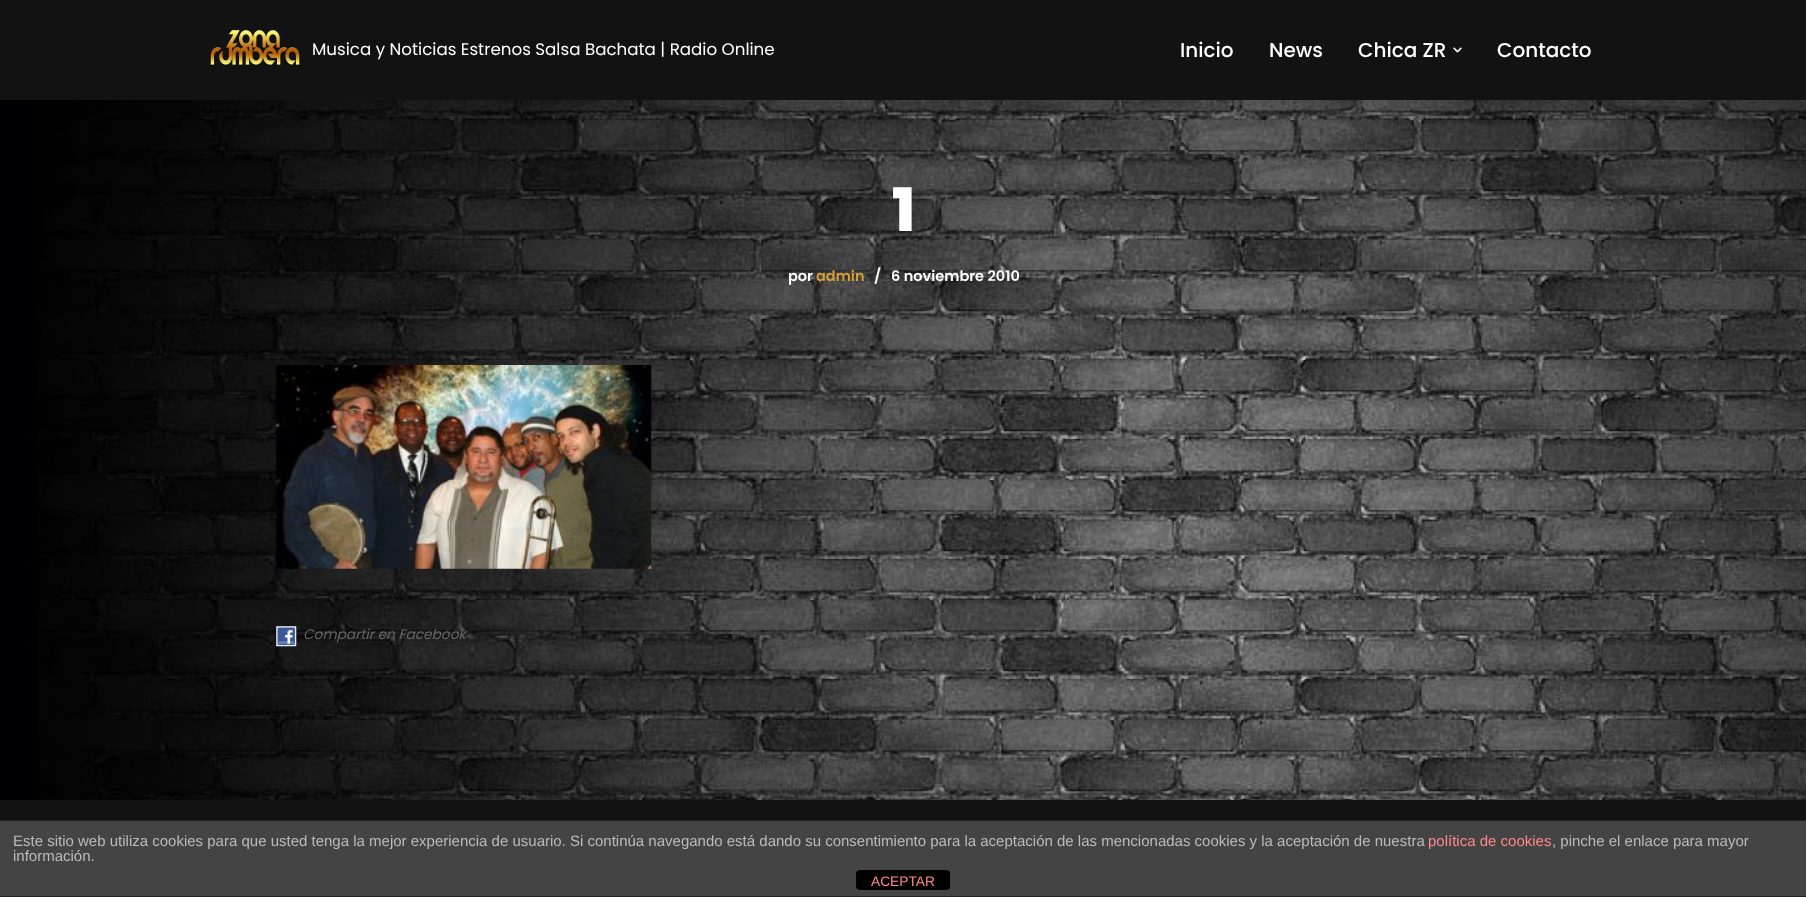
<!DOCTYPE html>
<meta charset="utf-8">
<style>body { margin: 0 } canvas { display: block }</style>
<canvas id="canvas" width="1806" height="897"></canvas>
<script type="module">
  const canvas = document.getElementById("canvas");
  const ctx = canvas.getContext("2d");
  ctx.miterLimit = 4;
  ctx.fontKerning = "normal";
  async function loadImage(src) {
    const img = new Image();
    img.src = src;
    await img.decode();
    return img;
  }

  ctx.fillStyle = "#ffffff";
  ctx.fillRect(0, 0, 1806, 897);
  ctx.drawImage(await loadImage("img1.png"), 0, 100, 1806, 700);
  ctx.fillStyle = "rgba(0, 0, 0, 0.1)";
  ctx.filter = "blur(2px)";
  ctx.beginPath();
  ctx.rect(0, -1, 1806, 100);
  ctx.fill();
  ctx.filter = "none";
  ctx.fillStyle = "#121212";
  ctx.fillRect(0, 0, 1806, 100);
  ctx.drawImage(await loadImage("img2.png"), 210, 30, 90, 35);
  ctx.font = "16.7px Poppins";
  ctx.fillStyle = "#ffffff";
  ctx.fillText("Musica y Noticias Estrenos Salsa Bachata | Radio Online", 312, 55);
  ctx.font = "500 20px Poppins";
  ctx.fillText("Inicio", 1180, 57);
  ctx.fillText("News", 1269, 57);
  ctx.fillText("Chica ZR", 1358, 57);
  ctx.drawImage(await loadImage("img3.png"), 1453, 47, 9, 6);
  ctx.fillText("Contacto", 1497, 57);
  ctx.font = "800 60px Poppins";
  ctx.fillText("1", 892, 231);
  ctx.font = "600 14.5px Poppins";
  ctx.fillText("por", 788, 281);
  ctx.fillStyle = "#d69f38";
  ctx.fillText("admin", 816, 281);
  ctx.fillStyle = "#ffffff";
  ctx.fillText("/", 874, 281);
  ctx.fillText("6 noviembre 2010", 891, 281);
  ctx.drawImage(await loadImage("img4.png"), 276, 365, 376, 204);
  ctx.drawImage(await loadImage("img5.png"), 276, 626, 21, 21);
  ctx.font = "italic 13.75px Poppins";
  ctx.fillStyle = "#666666";
  ctx.fillText("Compartir en Facebook", 303, 639);
  ctx.fillStyle = "#121212";
  ctx.fillRect(0, 800, 1806, 20);
  ctx.fillStyle = "#444444";
  ctx.fillRect(0, 821, 1806, 75);
  ctx.fillStyle = "#222222";
  ctx.fillRect(0, 820, 1806, 1);
  ctx.fillRect(0, 896, 1806, 1);
  ctx.font = "15px Liberation Sans";
  ctx.fillStyle = "#bbbbbb";
  ctx.fillText("Este sitio web utiliza cookies para que usted tenga la mejor experiencia de usuario. Si continúa navegando está dando su consentimiento para la aceptación de las mencionadas cookies y la aceptación de nuestra", 13, 846);
  ctx.fillStyle = "#ff8888";
  ctx.fillText("política de cookies", 1428, 846);
  ctx.fillStyle = "#bbbbbb";
  ctx.fillText(", pinche el enlace para mayor", 1552, 846);
  ctx.fillText("información.", 13, 861);
  ctx.fillStyle = "#000000";
  ctx.beginPath();
  ctx.roundRect(856, 870, 94, 20, 4);
  ctx.fill();
  ctx.font = "13.75px Liberation Sans";
  ctx.fillStyle = "#ff8888";
  ctx.fillText("ACEPTAR", 871, 886);
</script>
